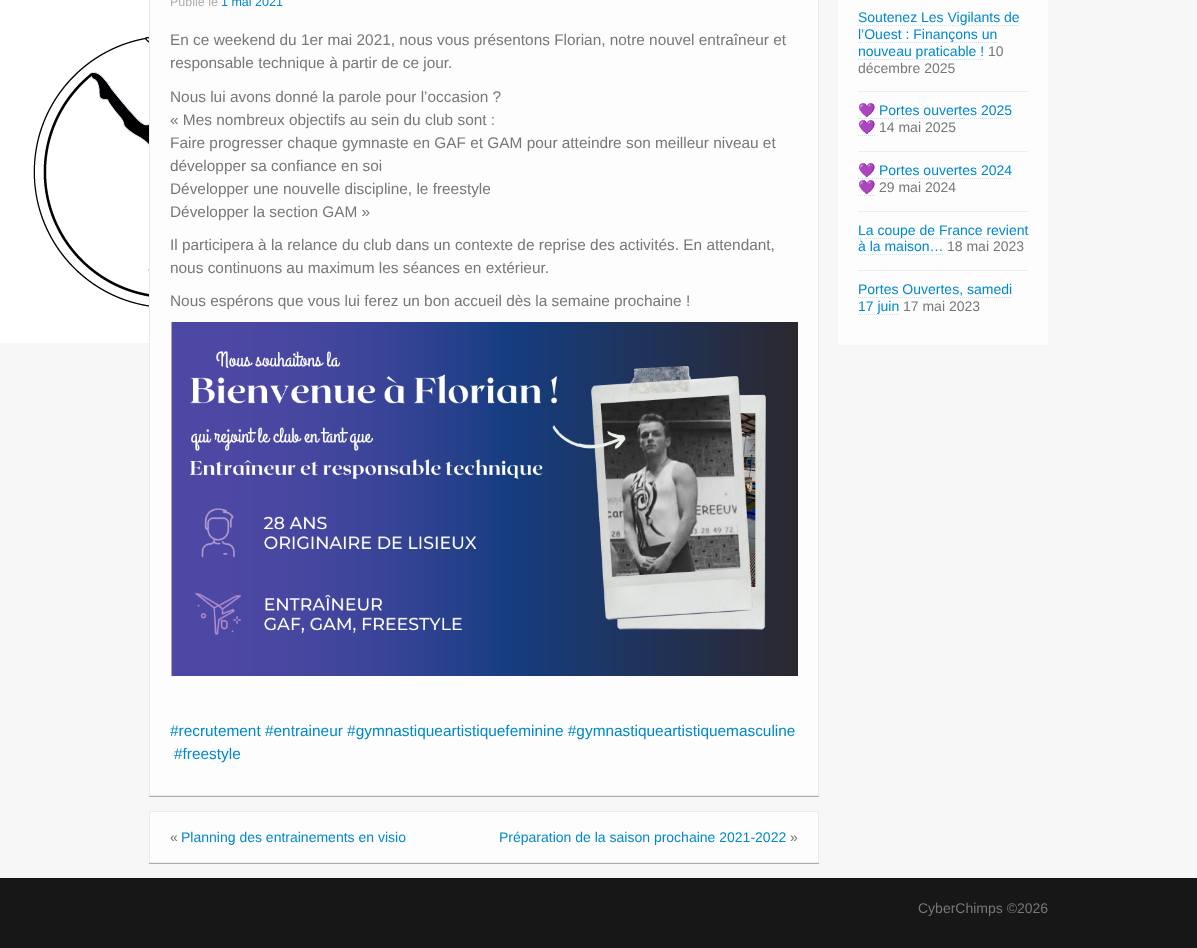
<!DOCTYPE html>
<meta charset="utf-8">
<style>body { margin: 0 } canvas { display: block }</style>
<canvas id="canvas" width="1197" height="948"></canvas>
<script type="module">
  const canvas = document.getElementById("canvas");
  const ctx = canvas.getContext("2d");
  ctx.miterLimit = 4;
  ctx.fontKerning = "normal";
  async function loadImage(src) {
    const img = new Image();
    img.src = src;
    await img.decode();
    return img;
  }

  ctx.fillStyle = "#f7f7f7";
  ctx.fillRect(0, 0, 1197, 948);
  ctx.drawImage(await loadImage("img1.png"), 0, 0, 149, 343);
  ctx.fillStyle = "#adadad";
  ctx.fillRect(149, 796, 670, 1);
  ctx.fillStyle = "#fdfdfd";
  ctx.beginPath();
  ctx.rect(149.5, -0.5, 669, 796);
  ctx.fill();
  ctx.strokeStyle = "#eaeaea";
  ctx.stroke();
  ctx.font = "12.5px Liberation Sans";
  ctx.fillStyle = "#afaeae";
  ctx.fillText("Publié le", 170, 6);
  ctx.fillStyle = "#0088cc";
  ctx.fillText("1 mai 2021", 221, 6);
  ctx.font = "15.4px Liberation Sans";
  ctx.fillStyle = "#777777";
  ctx.fillText("En ce weekend du 1er mai 2021, nous vous présentons Florian, notre nouvel entraîneur et", 170, 45);
  ctx.fillText("responsable technique à partir de ce jour.", 170, 68);
  ctx.fillText("Nous lui avons donné la parole pour l’occasion ?", 170, 102);
  ctx.fillText("« Mes nombreux objectifs au sein du club sont :", 170, 125);
  ctx.fillText("Faire progresser chaque gymnaste en GAF et GAM pour atteindre son meilleur niveau et", 170, 148);
  ctx.fillText("développer sa confiance en soi", 170, 171);
  ctx.fillText("Développer une nouvelle discipline, le freestyle", 170, 194);
  ctx.fillText("Développer la section GAM »", 170, 217);
  ctx.fillText("Il participera à la relance du club dans un contexte de reprise des activités. En attendant,", 170, 250);
  ctx.fillText("nous continuons au maximum les séances en extérieur.", 170, 273);
  ctx.fillText("Nous espérons que vous lui ferez un bon accueil dès la semaine prochaine !", 170, 306);
  ctx.drawImage(await loadImage("img2.png"), 171, 322, 627, 354);
  ctx.fillStyle = "#0088cc";
  ctx.fillText("#recrutement #entraineur #gymnastiqueartistiquefeminine #gymnastiqueartistiquemasculine", 170, 736);
  ctx.fillText("#freestyle", 174, 759);
  ctx.fillStyle = "#adadad";
  ctx.fillRect(149, 863, 670, 1);
  ctx.fillStyle = "#fdfdfd";
  ctx.beginPath();
  ctx.rect(149.5, 811.5, 669, 51);
  ctx.fill();
  ctx.stroke();
  ctx.font = "14px Liberation Sans";
  ctx.fillStyle = "#777777";
  ctx.fillText("«", 170, 842);
  ctx.fillStyle = "#0088cc";
  ctx.fillText("Planning des entrainements en visio", 181, 842);
  ctx.fillText("Préparation de la saison prochaine 2021-2022", 499, 842);
  ctx.fillStyle = "#777777";
  ctx.fillText("»", 790, 842);
  ctx.fillStyle = "#fdfdfd";
  ctx.fillRect(838, 0, 210, 345);
  ctx.fillStyle = "#ededed";
  ctx.fillRect(858, 91, 170, 1);
  ctx.fillStyle = "#0088cc";
  ctx.fillText("Soutenez Les Vigilants de", 858, 22);
  ctx.beginPath();
  ctx.moveTo(858, 25.5);
  ctx.lineTo(1019, 25.5);
  ctx.strokeStyle = "#c5e5f4";
  ctx.setLineDash([1, 1]);
  ctx.stroke();
  ctx.fillText("l’Ouest : Finançons un", 858, 39);
  ctx.beginPath();
  ctx.moveTo(858, 42.5);
  ctx.lineTo(997, 42.5);
  ctx.stroke();
  ctx.fillText("nouveau praticable !", 858, 56);
  ctx.beginPath();
  ctx.moveTo(858, 59.5);
  ctx.lineTo(984, 59.5);
  ctx.stroke();
  ctx.fillStyle = "#777777";
  ctx.fillText("10", 988, 56);
  ctx.fillText("décembre 2025", 858, 73);
  ctx.fillStyle = "#ededed";
  ctx.fillRect(858, 151, 170, 1);
  ctx.font = "14px Noto Color Emoji";
  ctx.fillStyle = "#0088cc";
  ctx.fillText("💜", 858, 115);
  ctx.font = "14px Liberation Sans";
  ctx.fillText("Portes ouvertes 2025", 879, 115);
  ctx.beginPath();
  ctx.moveTo(858, 118.5);
  ctx.lineTo(1012, 118.5);
  ctx.stroke();
  ctx.font = "14px Noto Color Emoji";
  ctx.fillText("💜", 858, 132);
  ctx.beginPath();
  ctx.moveTo(858, 135.5);
  ctx.lineTo(875, 135.5);
  ctx.stroke();
  ctx.font = "14px Liberation Sans";
  ctx.fillStyle = "#777777";
  ctx.fillText("14 mai 2025", 879, 132);
  ctx.fillStyle = "#ededed";
  ctx.fillRect(858, 211, 170, 1);
  ctx.font = "14px Noto Color Emoji";
  ctx.fillStyle = "#0088cc";
  ctx.fillText("💜", 858, 175);
  ctx.font = "14px Liberation Sans";
  ctx.fillText("Portes ouvertes 2024", 879, 175);
  ctx.beginPath();
  ctx.moveTo(858, 178.5);
  ctx.lineTo(1012, 178.5);
  ctx.stroke();
  ctx.font = "14px Noto Color Emoji";
  ctx.fillText("💜", 858, 192);
  ctx.beginPath();
  ctx.moveTo(858, 195.5);
  ctx.lineTo(875, 195.5);
  ctx.stroke();
  ctx.font = "14px Liberation Sans";
  ctx.fillStyle = "#777777";
  ctx.fillText("29 mai 2024", 879, 192);
  ctx.fillStyle = "#ededed";
  ctx.fillRect(858, 270, 170, 1);
  ctx.fillStyle = "#0088cc";
  ctx.fillText("La coupe de France revient", 858, 235);
  ctx.beginPath();
  ctx.moveTo(858, 238.5);
  ctx.lineTo(1028, 238.5);
  ctx.stroke();
  ctx.fillText("à la maison…", 858, 251);
  ctx.beginPath();
  ctx.moveTo(858, 254.5);
  ctx.lineTo(943, 254.5);
  ctx.stroke();
  ctx.fillStyle = "#777777";
  ctx.fillText("18 mai 2023", 947, 251);
  ctx.fillStyle = "#0088cc";
  ctx.fillText("Portes Ouvertes, samedi", 858, 294);
  ctx.beginPath();
  ctx.moveTo(858, 297.5);
  ctx.lineTo(1012, 297.5);
  ctx.stroke();
  ctx.fillText("17 juin", 858, 311);
  ctx.beginPath();
  ctx.moveTo(858, 314.5);
  ctx.lineTo(899, 314.5);
  ctx.stroke();
  ctx.fillStyle = "#777777";
  ctx.fillText("17 mai 2023", 903, 311);
  ctx.fillStyle = "#171717";
  ctx.fillRect(0, 878, 1197, 70);
  ctx.fillStyle = "#777777";
  ctx.fillText("CyberChimps ©2026", 918, 913);
</script>
